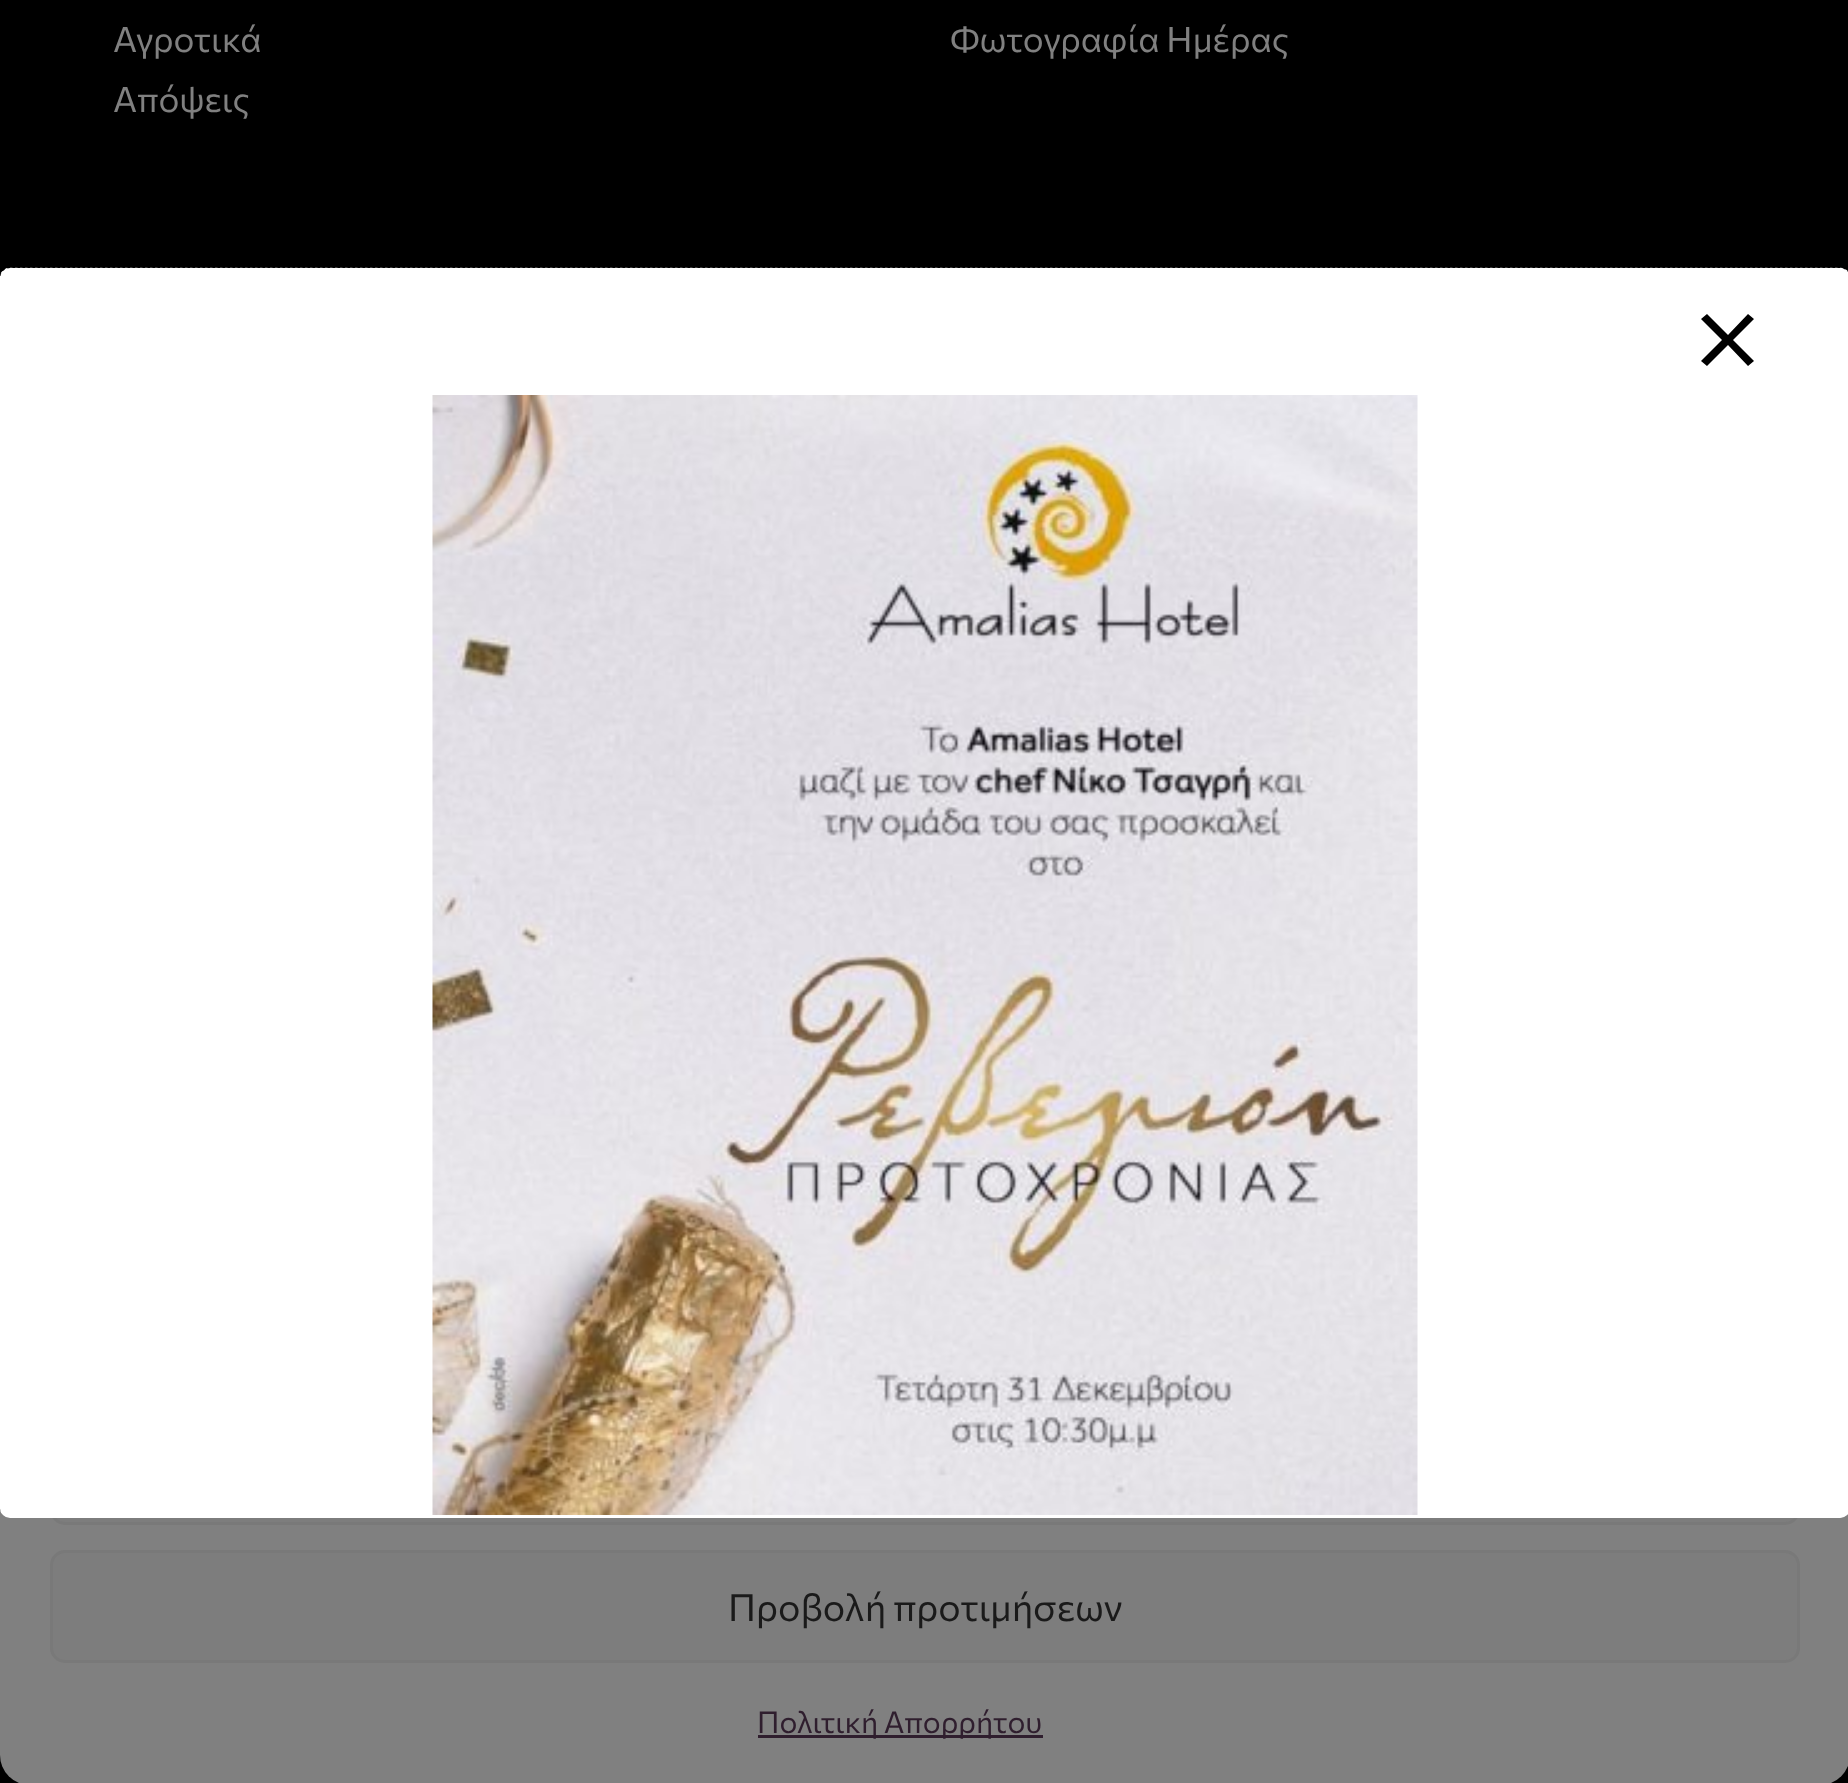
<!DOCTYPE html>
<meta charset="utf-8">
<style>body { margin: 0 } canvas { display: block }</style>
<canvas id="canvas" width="1848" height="1783"></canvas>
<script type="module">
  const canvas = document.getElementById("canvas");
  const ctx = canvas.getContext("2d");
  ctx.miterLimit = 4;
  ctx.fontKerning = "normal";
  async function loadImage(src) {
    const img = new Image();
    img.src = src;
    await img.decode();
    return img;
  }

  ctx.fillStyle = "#000000";
  ctx.fillRect(0, 0, 1848, 1783);
  ctx.font = "35px Commissioner";
  ctx.fillStyle = "#808080";
  ctx.fillText("Αγροτικά", 113, 52);
  ctx.fillText("Φωτογραφία Ημέρας", 950, 52);
  ctx.fillText("Απόψεις", 113, 112);
  ctx.beginPath();
  ctx.roundRect(0, 890, 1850, 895, 30);
  ctx.fill();
  ctx.fillStyle = "#7d7d7d";
  ctx.beginPath();
  ctx.roundRect(51.5, 1414.5, 1747, 109, 13.5);
  ctx.fill();
  ctx.strokeStyle = "#797979";
  ctx.lineWidth = 3;
  ctx.stroke();
  ctx.fillStyle = "#ffffff";
  ctx.beginPath();
  ctx.roundRect(0, 268, 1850, 1250, 10);
  ctx.fill();
  ctx.beginPath();
  ctx.moveTo(10, 269);
  ctx.lineTo(1840, 269);
  ctx.bezierCurveTo(1845, 269, 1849, 272.5, 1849, 277.5);
  ctx.lineTo(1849, 1507.5);
  ctx.bezierCurveTo(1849, 1512.5, 1845, 1516, 1840, 1516);
  ctx.lineTo(10, 1516);
  ctx.bezierCurveTo(5, 1516, 1, 1512.5, 1, 1507.5);
  ctx.lineTo(1, 277.5);
  ctx.bezierCurveTo(1, 272.5, 5, 269, 10, 269);
  ctx.closePath();
  ctx.strokeStyle = "#ffffff";
  ctx.lineWidth = 2.5;
  ctx.setLineDash([2.5, 2.5]);
  ctx.stroke();
  ctx.fillStyle = "#000000";
  ctx.beginPath();
  ctx.moveTo(1754, 319);
  ctx.lineTo(1748, 314);
  ctx.lineTo(1728, 335);
  ctx.lineTo(1707, 314);
  ctx.lineTo(1701, 319);
  ctx.lineTo(1722, 340);
  ctx.lineTo(1701, 361);
  ctx.lineTo(1707, 366);
  ctx.lineTo(1728, 345);
  ctx.lineTo(1748, 366);
  ctx.lineTo(1754, 361);
  ctx.lineTo(1733, 340);
  ctx.closePath();
  ctx.fill();
  ctx.drawImage(await loadImage("img1.png"), 432, 395, 986, 1120);
  ctx.fillStyle = "#7d7d7d";
  ctx.beginPath();
  ctx.roundRect(51.5, 1551.5, 1747, 110, 13.5);
  ctx.fill();
  ctx.strokeStyle = "#797979";
  ctx.lineWidth = 3;
  ctx.setLineDash([]);
  ctx.stroke();
  ctx.font = "37.5px Commissioner";
  ctx.fillStyle = "#1a1a1a";
  ctx.fillText("Προβολή προτιμήσεων", 728, 1621);
  ctx.fillStyle = "#2f1e2e";
  ctx.fillRect(758, 1735, 285, 3);
  ctx.font = "30px Commissioner";
  ctx.fillText("Πολιτική Απορρήτου", 757, 1733);
</script>
